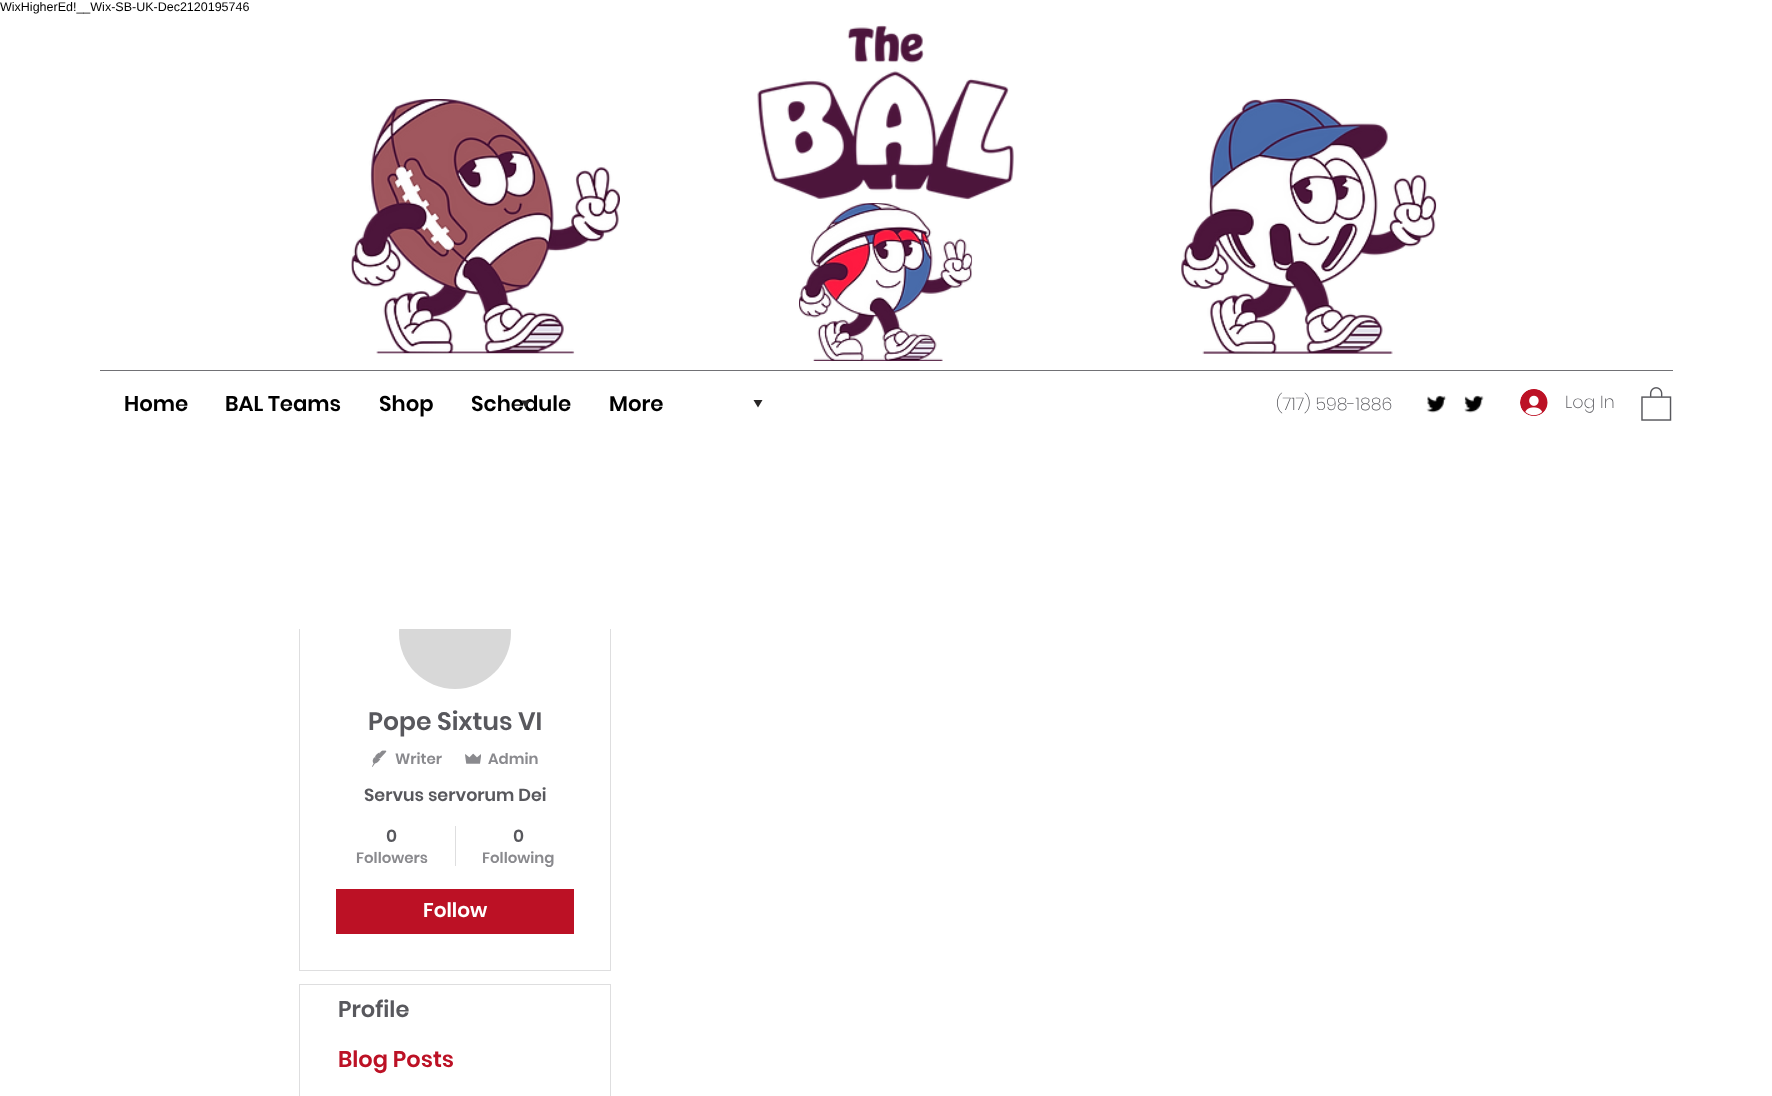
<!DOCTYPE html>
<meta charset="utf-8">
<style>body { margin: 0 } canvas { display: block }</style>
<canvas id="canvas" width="1772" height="1096"></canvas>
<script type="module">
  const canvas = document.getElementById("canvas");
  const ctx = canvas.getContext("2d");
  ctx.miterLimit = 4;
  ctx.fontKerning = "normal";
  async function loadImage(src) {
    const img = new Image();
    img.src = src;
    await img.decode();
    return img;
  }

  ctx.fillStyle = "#ffffff";
  ctx.fillRect(0, 0, 1772, 1096);
  ctx.font = "12.5px Liberation Sans";
  ctx.fillStyle = "#000000";
  ctx.fillText("WixHigherEd!__Wix-SB-UK-Dec2120195746", 0, 11);
  ctx.drawImage(await loadImage("img1.png"), 757, 25, 257, 175);
  ctx.drawImage(await loadImage("img2.png"), 351, 99, 269, 255);
  ctx.drawImage(await loadImage("img3.png"), 1181, 98, 256, 256);
  ctx.drawImage(await loadImage("img4.png"), 799, 203, 174, 158);
  ctx.fillStyle = "#717175";
  ctx.fillRect(100, 370, 1573, 1);
  ctx.font = "600 21.25px Poppins";
  ctx.fillStyle = "#000000";
  ctx.fillText("Home", 124, 411);
  ctx.fillText("BAL Teams", 225, 411);
  ctx.fillText("Shop", 379, 411);
  ctx.fillText("Schedule", 471, 411);
  ctx.fillText("More", 609, 411);
  ctx.fillStyle = "#282626";
  ctx.beginPath();
  ctx.moveTo(530, 400.5);
  ctx.lineTo(525.5, 408);
  ctx.lineTo(521.5, 400.5);
  ctx.closePath();
  ctx.fill();
  ctx.beginPath();
  ctx.moveTo(758, 407.5);
  ctx.lineTo(753.5, 400);
  ctx.lineTo(762.5, 400);
  ctx.closePath();
  ctx.fill();
  ctx.font = "200 17.5px Poppins";
  ctx.fillStyle = "#58585d";
  ctx.fillText("(717) 598-1886", 1276, 410);
  ctx.drawImage(await loadImage("img5.png"), 1426, 395, 21, 18);
  ctx.drawImage(await loadImage("img6.png"), 1464, 395, 20, 18);
  ctx.drawImage(await loadImage("img7.png"), 1520, 389, 28, 27);
  ctx.fillText("Log In", 1565, 408);
  ctx.drawImage(await loadImage("img8.png"), 1641, 387, 31, 34);
  ctx.strokeStyle = "#dededf";
  ctx.strokeRect(299.5, 539.5, 311, 431);
  ctx.fillStyle = "#d8d8d8";
  ctx.beginPath();
  ctx.roundRect(399, 576, 112, 113, 56);
  ctx.fill();
  ctx.fillStyle = "#ffffff";
  ctx.fillRect(299, 539, 312, 90);
  ctx.font = "600 25px Poppins";
  ctx.fillStyle = "#58585d";
  ctx.fillText("Pope Sixtus VI", 368, 730);
  ctx.drawImage(await loadImage("img9.png"), 372, 750, 15, 17);
  ctx.font = "600 15px Poppins";
  ctx.fillStyle = "#8a8a8e";
  ctx.fillText("Writer", 395, 764);
  ctx.drawImage(await loadImage("img10.png"), 465, 753, 16, 11);
  ctx.fillText("Admin", 488, 764);
  ctx.font = "600 17.5px Poppins";
  ctx.fillStyle = "#58585d";
  ctx.fillText("Servus servorum Dei", 364, 801);
  ctx.fillText("0", 386, 842);
  ctx.font = "600 15px Poppins";
  ctx.fillStyle = "#8a8a8e";
  ctx.fillText("Followers", 356, 863);
  ctx.fillStyle = "#dededf";
  ctx.fillRect(455, 826, 1, 40);
  ctx.font = "600 17.5px Poppins";
  ctx.fillStyle = "#58585d";
  ctx.fillText("0", 513, 842);
  ctx.save();
  ctx.beginPath();
  ctx.rect(483, 849, 71, 20);
  ctx.clip();
  ctx.font = "600 15px Poppins";
  ctx.fillStyle = "#8a8a8e";
  ctx.fillText("Following", 482, 863);
  ctx.restore();
  ctx.fillStyle = "#bc1125";
  ctx.fillRect(336, 889, 238, 45);
  ctx.font = "600 20px Poppins";
  ctx.fillStyle = "#ffffff";
  ctx.fillText("Follow", 423, 917);
  ctx.strokeRect(299.5, 984.5, 311, 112);
  ctx.font = "600 22.5px Poppins";
  ctx.fillStyle = "#58585d";
  ctx.fillText("Profile", 338, 1017);
  ctx.fillStyle = "#bc1125";
  ctx.fillText("Blog Posts", 338, 1067);
</script>
